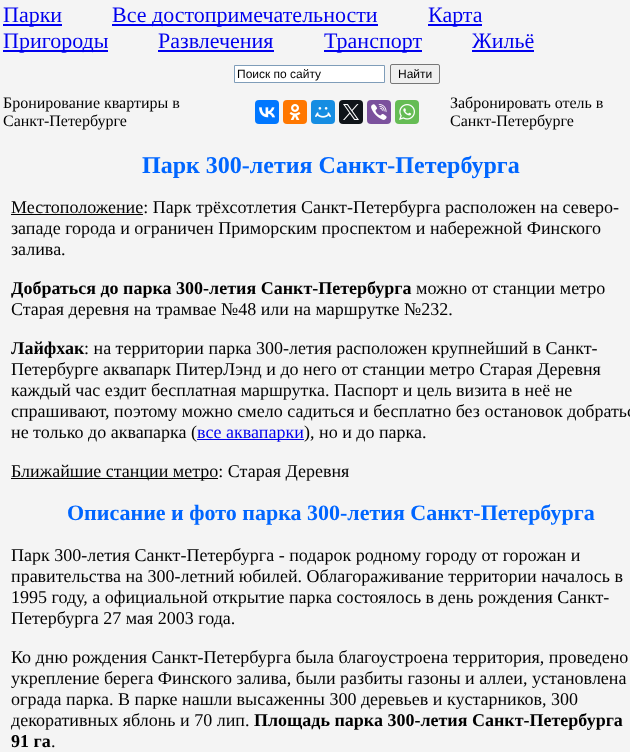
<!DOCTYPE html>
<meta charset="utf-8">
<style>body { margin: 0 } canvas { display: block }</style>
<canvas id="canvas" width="630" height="752"></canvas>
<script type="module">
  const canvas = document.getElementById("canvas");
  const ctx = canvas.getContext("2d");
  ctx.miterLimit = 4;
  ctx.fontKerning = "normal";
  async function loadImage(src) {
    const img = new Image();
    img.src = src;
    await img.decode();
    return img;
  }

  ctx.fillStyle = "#f4f4f4";
  ctx.fillRect(0, 0, 630, 752);
  ctx.fillStyle = "#0000ee";
  ctx.fillRect(3, 24, 59, 2);
  ctx.font = "22px Liberation Serif";
  ctx.fillText("Парки", 3, 22);
  ctx.fillRect(112, 24, 266, 2);
  ctx.fillText("Все достопримечательности", 112, 22);
  ctx.fillRect(428, 24, 54, 2);
  ctx.fillText("Карта", 428, 22);
  ctx.fillRect(3, 50, 105, 2);
  ctx.fillText("Пригороды", 3, 48);
  ctx.fillText("Развлечения", 158, 48);
  ctx.fillRect(158, 50, 116, 2);
  ctx.fillRect(324, 50, 98, 2);
  ctx.fillText("Транспорт", 324, 48);
  ctx.fillText("Жильё", 472, 48);
  ctx.fillRect(472, 50, 62, 2);
  ctx.fillStyle = "#ffffff";
  ctx.beginPath();
  ctx.rect(234.5, 65.5, 150, 17);
  ctx.fill();
  ctx.strokeStyle = "#7f9db9";
  ctx.stroke();
  ctx.font = "12px Liberation Sans";
  ctx.fillStyle = "#000000";
  ctx.fillText("Поиск по сайту", 237, 78);
  ctx.fillStyle = "#efefef";
  ctx.beginPath();
  ctx.roundRect(390.5, 64.5, 49, 19, 1.5);
  ctx.fill();
  ctx.strokeStyle = "#767676";
  ctx.stroke();
  ctx.fillStyle = "#000000";
  ctx.fillText("Найти", 398, 78);
  ctx.font = "16px Liberation Serif";
  ctx.fillText("Бронирование квартиры в", 3, 108);
  ctx.fillText("Санкт-Петербурге", 3, 126);
  ctx.fillStyle = "#0077ff";
  ctx.beginPath();
  ctx.roundRect(255, 100, 24, 24, 4);
  ctx.fill();
  ctx.drawImage(await loadImage("img1.png"), 259, 107, 16, 11);
  ctx.fillStyle = "#ff7700";
  ctx.beginPath();
  ctx.roundRect(283, 100, 24, 24, 4);
  ctx.fill();
  ctx.drawImage(await loadImage("img2.png"), 289, 104, 12, 16);
  ctx.fillStyle = "#168de2";
  ctx.beginPath();
  ctx.roundRect(311, 100, 24, 24, 4);
  ctx.fill();
  ctx.drawImage(await loadImage("img3.png"), 315, 107, 16, 11);
  ctx.fillStyle = "#0f1419";
  ctx.beginPath();
  ctx.roundRect(339, 100, 24, 24, 4);
  ctx.fill();
  ctx.drawImage(await loadImage("img4.png"), 343, 104, 16, 16);
  ctx.fillStyle = "#7b519d";
  ctx.beginPath();
  ctx.roundRect(367, 100, 24, 24, 4);
  ctx.fill();
  ctx.drawImage(await loadImage("img5.png"), 371, 104, 16, 16);
  ctx.fillStyle = "#65bc54";
  ctx.beginPath();
  ctx.roundRect(395, 100, 24, 24, 4);
  ctx.fill();
  ctx.drawImage(await loadImage("img6.png"), 399, 104, 16, 16);
  ctx.fillStyle = "#000000";
  ctx.fillText("Забронировать отель в", 450, 108);
  ctx.fillText("Санкт-Петербурге", 450, 126);
  ctx.font = "bold 24px Liberation Serif";
  ctx.fillStyle = "#0066ff";
  ctx.fillText("Парк 300-летия Санкт-Петербурга", 142, 173);
  ctx.fillStyle = "#000000";
  ctx.fillRect(11, 214, 132, 1);
  ctx.font = "18px Liberation Serif";
  ctx.fillText("Местоположение: Парк трёхсотлетия Санкт-Петербурга расположен на северо-", 11, 213);
  ctx.fillText("западе города и ограничен Приморским проспектом и набережной Финского", 11, 234);
  ctx.fillText("залива.", 11, 255);
  ctx.font = "bold 18px Liberation Serif";
  ctx.fillText("Добраться до парка 300-летия Санкт-Петербурга", 11, 294);
  ctx.font = "18px Liberation Serif";
  ctx.fillText("можно от станции метро", 416, 294);
  ctx.fillText("Старая деревня на трамвае №48 или на маршрутке №232.", 11, 315);
  ctx.font = "bold 18px Liberation Serif";
  ctx.fillText("Лайфхак", 11, 354);
  ctx.font = "18px Liberation Serif";
  ctx.fillText(": на территории парка 300-летия расположен крупнейший в Санкт-", 84, 354);
  ctx.fillText("Петербурге аквапарк ПитерЛэнд и до него от станции метро Старая Деревня", 11, 375);
  ctx.fillText("каждый час ездит бесплатная маршрутка. Паспорт и цель визита в неё не", 11, 396);
  ctx.fillText("спрашивают, поэтому можно смело садиться и бесплатно без остановок добратьс", 11, 417);
  ctx.fillText("не только до аквапарка (", 11, 438);
  ctx.fillStyle = "#0000ee";
  ctx.fillRect(197, 439, 107, 1);
  ctx.fillText("все аквапарки", 197, 438);
  ctx.fillStyle = "#000000";
  ctx.fillText("), но и до парка.", 304, 438);
  ctx.fillRect(11, 478, 207, 1);
  ctx.fillText("Ближайшие станции метро: Старая Деревня", 11, 477);
  ctx.font = "bold 22px Liberation Serif";
  ctx.fillStyle = "#0066ff";
  ctx.fillText("Описание и фото парка 300-летия Санкт-Петербурга", 67, 520);
  ctx.font = "18px Liberation Serif";
  ctx.fillStyle = "#000000";
  ctx.fillText("Парк 300-летия Санкт-Петербурга - подарок родному городу от горожан и", 11, 561);
  ctx.fillText("правительства на 300-летний юбилей. Облагораживание территории началось в", 11, 582);
  ctx.fillText("1995 году, а официальной открытие парка состоялось в день рождения Санкт-", 11, 603);
  ctx.fillText("Петербурга 27 мая 2003 года.", 11, 624);
  ctx.fillText("Ко дню рождения Санкт-Петербурга была благоустроена территория, проведено", 11, 663);
  ctx.fillText("укрепление берега Финского залива, были разбиты газоны и аллеи, установлена", 11, 684);
  ctx.fillText("ограда парка. В парке нашли высаженны 300 деревьев и кустарников, 300", 11, 705);
  ctx.fillText("декоративных яблонь и 70 лип.", 11, 726);
  ctx.font = "bold 18px Liberation Serif";
  ctx.fillText("Площадь парка 300-летия Санкт-Петербурга", 254, 726);
  ctx.fillText("91 га", 11, 747);
  ctx.font = "18px Liberation Serif";
  ctx.fillText(".", 51, 747);
</script>
